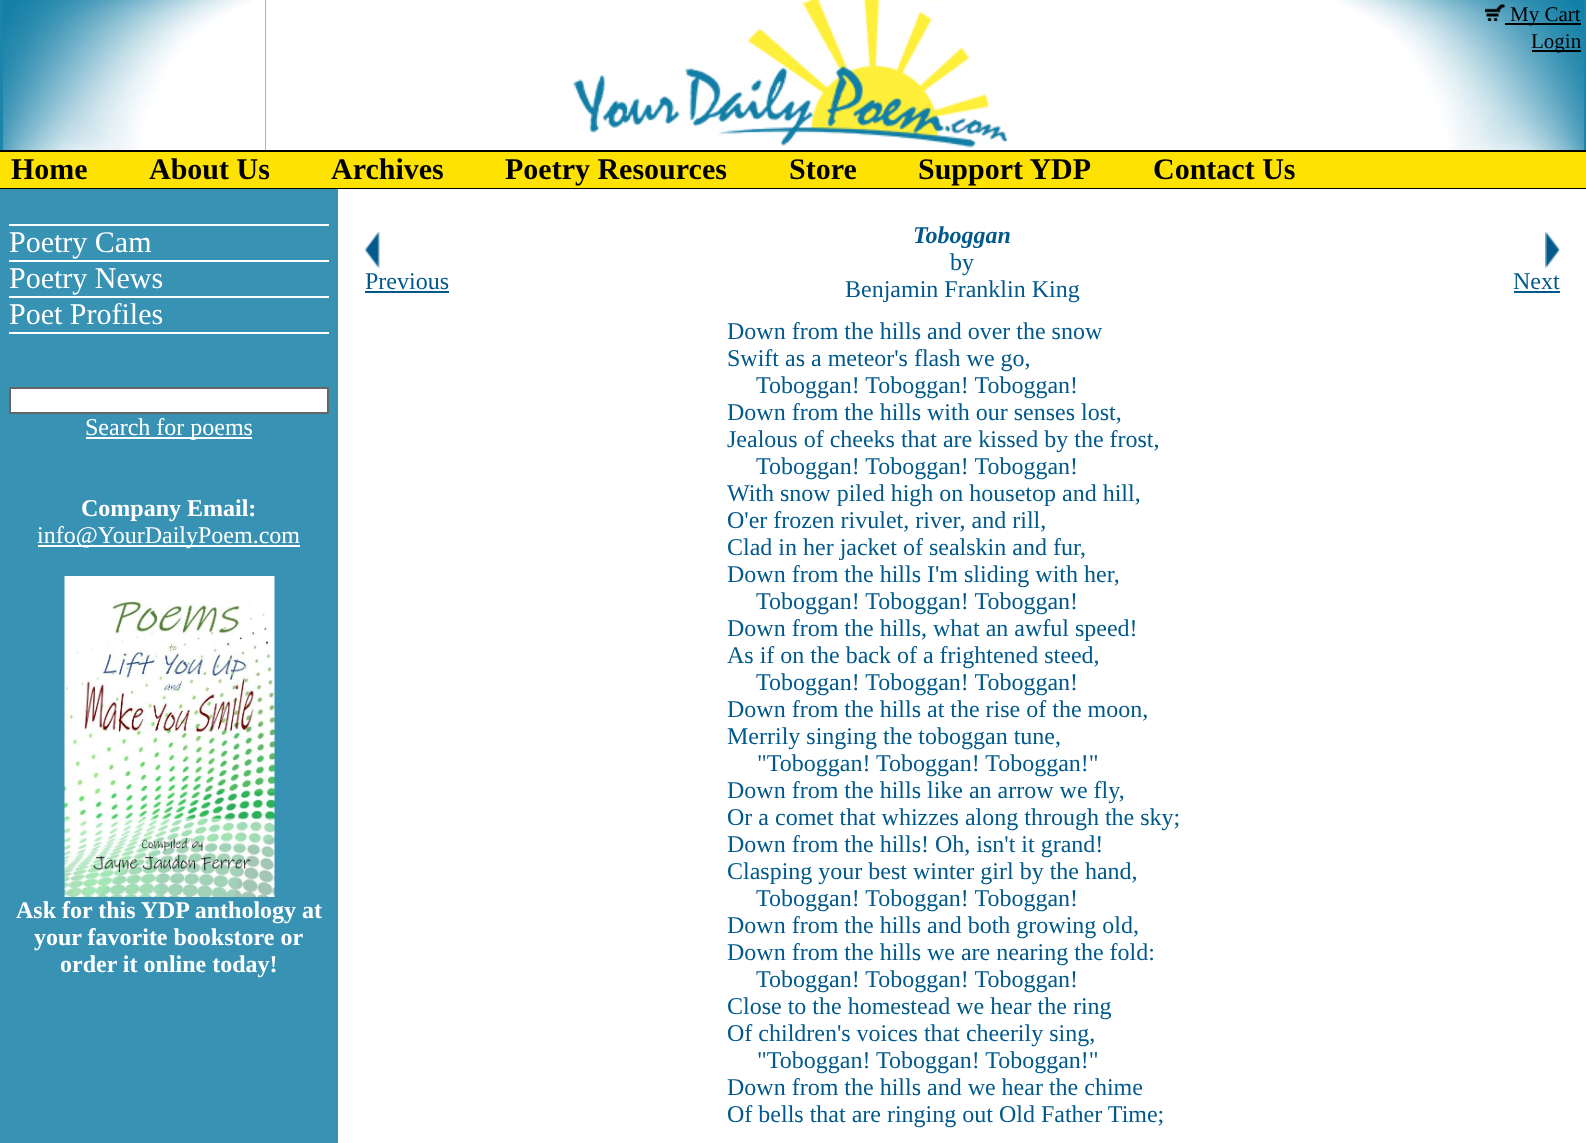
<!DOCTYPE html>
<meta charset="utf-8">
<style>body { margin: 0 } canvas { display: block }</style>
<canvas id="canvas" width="1586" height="1143"></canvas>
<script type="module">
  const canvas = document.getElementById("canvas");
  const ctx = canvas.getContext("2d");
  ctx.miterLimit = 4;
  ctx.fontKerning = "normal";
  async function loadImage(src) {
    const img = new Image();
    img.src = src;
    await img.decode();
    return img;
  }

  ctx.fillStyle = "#ffffff";
  ctx.fillRect(0, 0, 1586, 1143);
  ctx.fillStyle = "#000000";
  ctx.fillRect(0, 150, 1586, 2);
  ctx.fillStyle = "#1c84a9";
  ctx.fillRect(0, 0, 266, 150);
  ctx.drawImage(await loadImage("img1.png"), 3, 0, 263, 150);
  ctx.drawImage(await loadImage("img2.png"), 572, 0, 437, 148);
  ctx.fillRect(1584, 0, 2, 150);
  ctx.drawImage(await loadImage("img3.png"), 1322, 0, 262, 150);
  ctx.drawImage(await loadImage("img4.png"), 1485, 4, 20, 17);
  ctx.fillStyle = "#000000";
  ctx.fillRect(1505, 23, 76, 2);
  ctx.font = "21px Liberation Serif";
  ctx.fillText("My Cart", 1510, 21);
  ctx.fillRect(1532, 50, 49, 2);
  ctx.fillText("Login", 1531, 48);
  ctx.fillStyle = "#fee202";
  ctx.fillRect(0, 152, 1586, 36);
  ctx.fillStyle = "#000000";
  ctx.fillRect(0, 188, 1586, 1);
  ctx.font = "bold 30px Liberation Serif";
  ctx.fillText("Home", 11, 179);
  ctx.fillText("About Us", 149, 179);
  ctx.fillText("Archives", 331, 179);
  ctx.fillText("Poetry Resources", 505, 179);
  ctx.fillText("Store", 789, 179);
  ctx.fillText("Support YDP", 918, 179);
  ctx.fillText("Contact Us", 1153, 179);
  ctx.fillStyle = "#3892b4";
  ctx.fillRect(0, 189, 338, 954);
  ctx.fillStyle = "#ffffff";
  ctx.fillRect(9, 332, 320, 2);
  ctx.fillRect(9, 224, 320, 2);
  ctx.font = "30px Liberation Serif";
  ctx.fillText("Poetry Cam", 9, 252);
  ctx.fillRect(9, 260, 320, 2);
  ctx.fillText("Poetry News", 9, 288);
  ctx.fillRect(9, 296, 320, 2);
  ctx.fillText("Poet Profiles", 9, 324);
  ctx.beginPath();
  ctx.rect(10, 388, 318, 25);
  ctx.fill();
  ctx.strokeStyle = "#666666";
  ctx.lineWidth = 2;
  ctx.stroke();
  ctx.fillRect(86, 437, 166, 2);
  ctx.font = "24px Liberation Serif";
  ctx.fillText("Search for poems", 85, 435);
  ctx.font = "bold 24px Liberation Serif";
  ctx.fillText("Company Email:", 81, 516);
  ctx.fillRect(38, 545, 262, 2);
  ctx.font = "24px Liberation Serif";
  ctx.fillText("info@YourDailyPoem.com", 37, 543);
  ctx.drawImage(await loadImage("img5.png"), 64, 576, 211, 321);
  ctx.font = "bold 24px Liberation Serif";
  ctx.fillText("Ask for this YDP anthology at", 16, 918);
  ctx.fillText("your favorite bookstore or", 34, 945);
  ctx.fillText("order it online today!", 60, 972);
  ctx.drawImage(await loadImage("img6.png"), 364, 231, 16, 38);
  ctx.font = "24px Liberation Serif";
  ctx.fillStyle = "#01598b";
  ctx.fillText("Previous", 365, 289);
  ctx.fillRect(365, 291, 84, 2);
  ctx.font = "italic bold 24px Liberation Serif";
  ctx.fillText("Toboggan", 913, 243);
  ctx.font = "24px Liberation Serif";
  ctx.fillText("by", 950, 270);
  ctx.fillText("Benjamin Franklin King", 845, 297);
  ctx.drawImage(await loadImage("img7.png"), 1545, 231, 15, 38);
  ctx.fillText("Next", 1513, 289);
  ctx.fillRect(1514, 291, 46, 2);
  ctx.fillText("Down from the hills and over the snow", 727, 339);
  ctx.fillText("Swift as a meteor's flash we go,", 727, 366);
  ctx.fillText("Toboggan! Toboggan! Toboggan!", 756, 393);
  ctx.fillText("Down from the hills with our senses lost,", 727, 420);
  ctx.fillText("Jealous of cheeks that are kissed by the frost,", 727, 447);
  ctx.fillText("Toboggan! Toboggan! Toboggan!", 756, 474);
  ctx.fillText("With snow piled high on housetop and hill,", 727, 501);
  ctx.fillText("O'er frozen rivulet, river, and rill,", 727, 528);
  ctx.fillText("Clad in her jacket of sealskin and fur,", 727, 555);
  ctx.fillText("Down from the hills I'm sliding with her,", 727, 582);
  ctx.fillText("Toboggan! Toboggan! Toboggan!", 756, 609);
  ctx.fillText("Down from the hills, what an awful speed!", 727, 636);
  ctx.fillText("As if on the back of a frightened steed,", 727, 663);
  ctx.fillText("Toboggan! Toboggan! Toboggan!", 756, 690);
  ctx.fillText("Down from the hills at the rise of the moon,", 727, 717);
  ctx.fillText("Merrily singing the toboggan tune,", 727, 744);
  ctx.fillText("\"Toboggan! Toboggan! Toboggan!\"", 757, 771);
  ctx.fillText("Down from the hills like an arrow we fly,", 727, 798);
  ctx.fillText("Or a comet that whizzes along through the sky;", 727, 825);
  ctx.fillText("Down from the hills! Oh, isn't it grand!", 727, 852);
  ctx.fillText("Clasping your best winter girl by the hand,", 727, 879);
  ctx.fillText("Toboggan! Toboggan! Toboggan!", 756, 906);
  ctx.fillText("Down from the hills and both growing old,", 727, 933);
  ctx.fillText("Down from the hills we are nearing the fold:", 727, 960);
  ctx.fillText("Toboggan! Toboggan! Toboggan!", 756, 987);
  ctx.fillText("Close to the homestead we hear the ring", 727, 1014);
  ctx.fillText("Of children's voices that cheerily sing,", 727, 1041);
  ctx.fillText("\"Toboggan! Toboggan! Toboggan!\"", 757, 1068);
  ctx.fillText("Down from the hills and we hear the chime", 727, 1095);
  ctx.fillText("Of bells that are ringing out Old Father Time;", 727, 1122);
</script>
